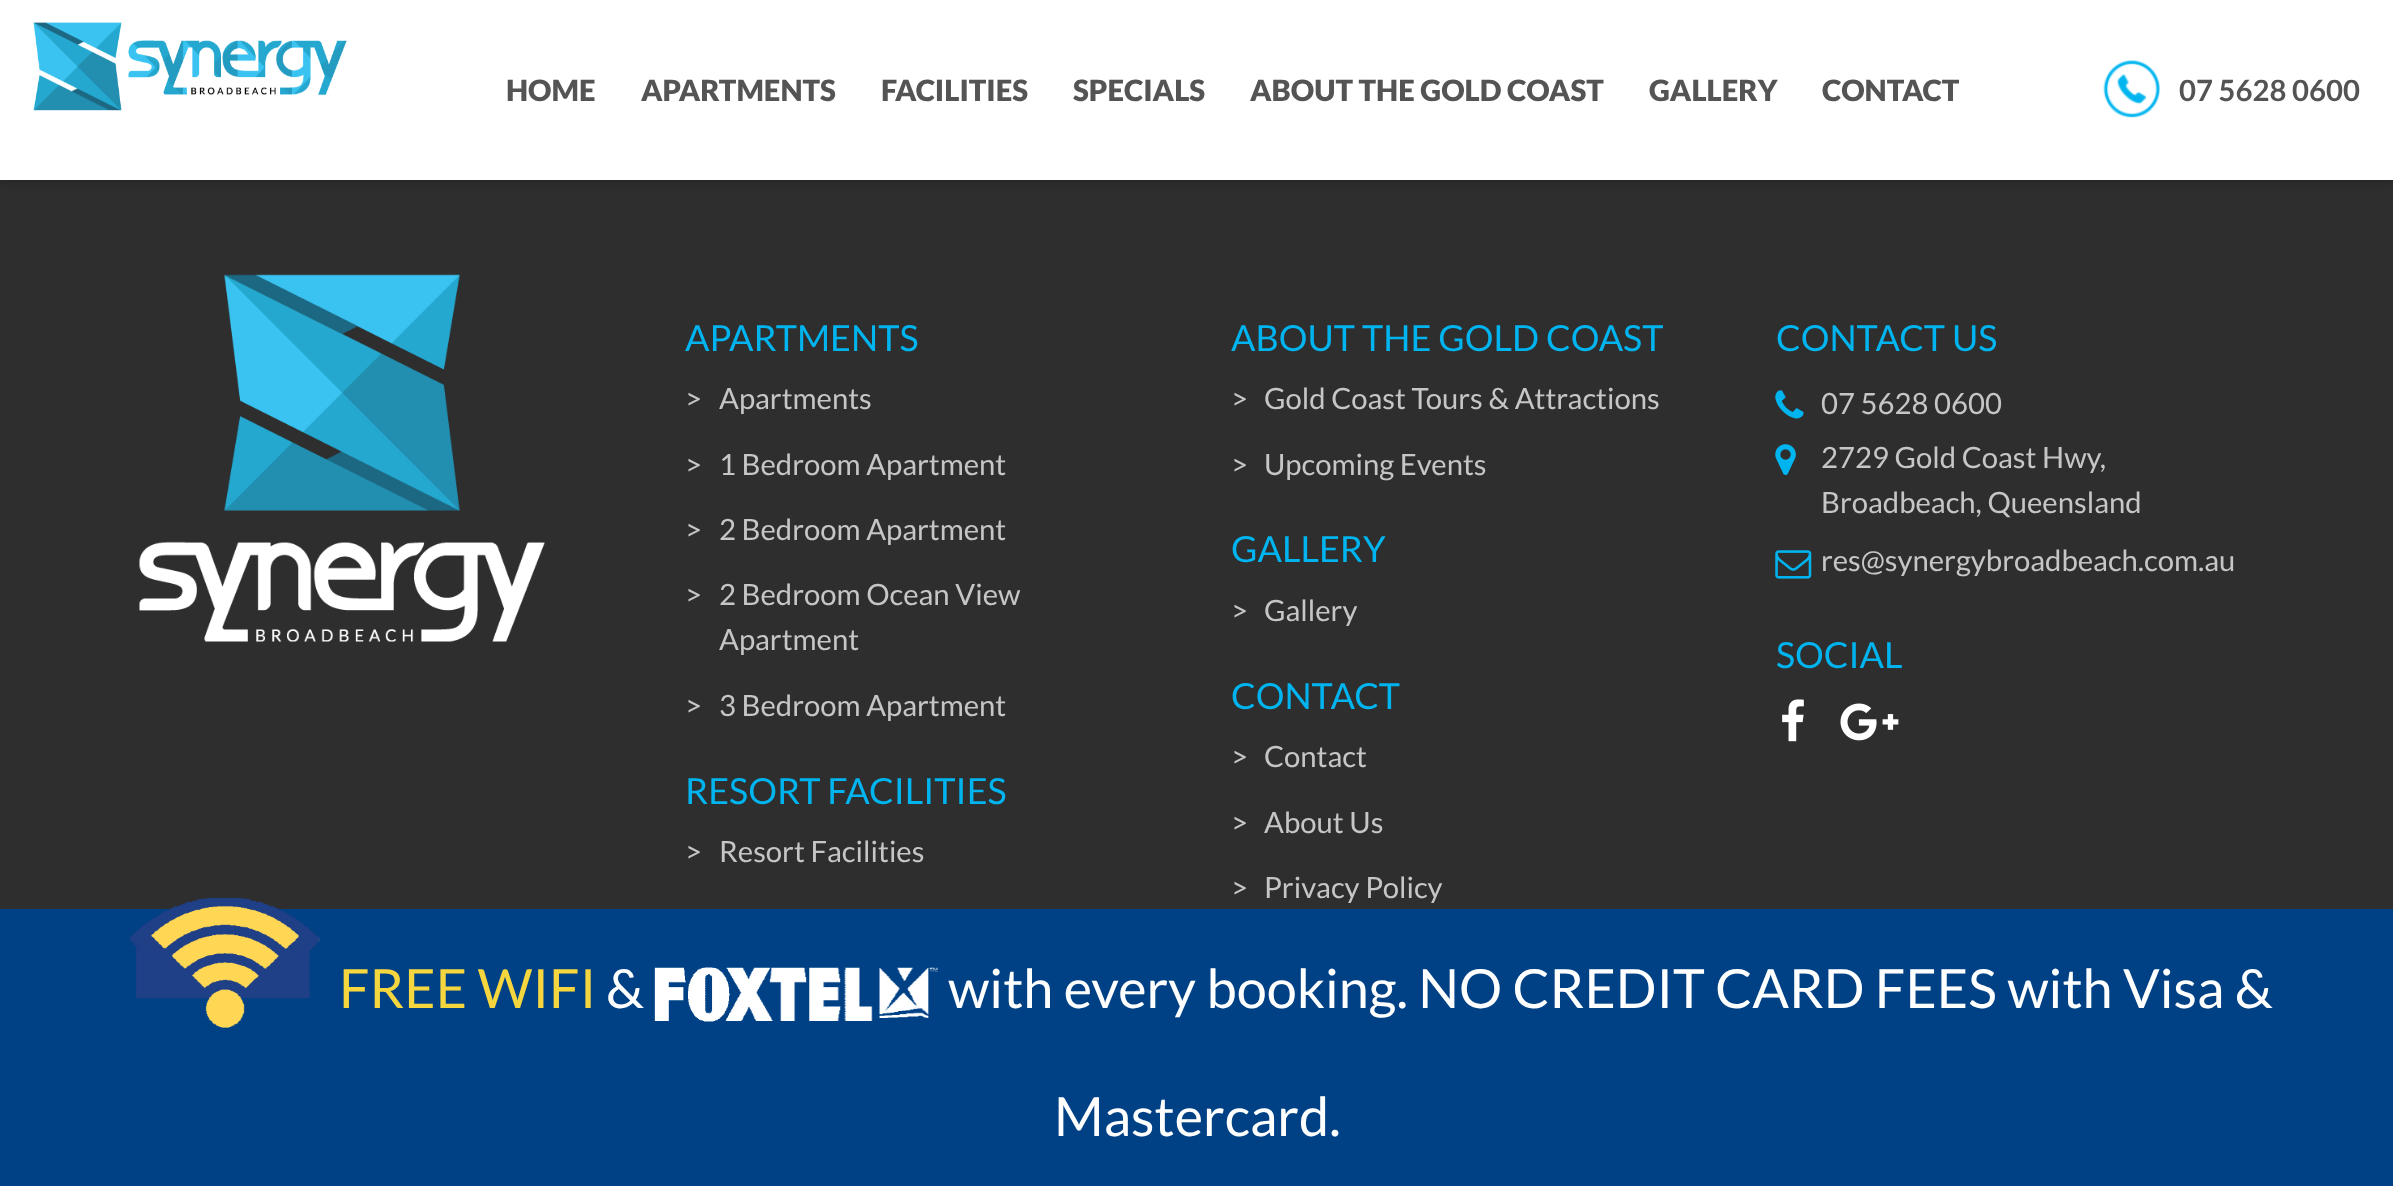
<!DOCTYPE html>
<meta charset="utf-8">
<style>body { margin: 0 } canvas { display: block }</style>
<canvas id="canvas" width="2393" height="1186"></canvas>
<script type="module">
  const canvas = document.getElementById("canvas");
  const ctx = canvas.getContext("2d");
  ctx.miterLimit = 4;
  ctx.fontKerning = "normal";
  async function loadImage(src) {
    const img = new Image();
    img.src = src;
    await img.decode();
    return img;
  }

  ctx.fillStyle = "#2e2e2e";
  ctx.fillRect(0, 0, 2393, 1186);
  ctx.fillStyle = "rgba(0, 0, 0, 0.3)";
  ctx.filter = "blur(5.5px)";
  ctx.beginPath();
  ctx.rect(0, 0, 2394, 180);
  ctx.fill();
  ctx.filter = "none";
  ctx.fillStyle = "#ffffff";
  ctx.fillRect(0, 0, 2393, 180);
  ctx.drawImage(await loadImage("img1.png"), 33, 22, 314, 89);
  ctx.font = "900 29.25px Lato";
  ctx.fillStyle = "#545454";
  ctx.fillText("HOME", 506, 101);
  ctx.fillText("APARTMENTS", 641, 101);
  ctx.fillText("FACILITIES", 881, 101);
  ctx.fillText("SPECIALS", 1073, 101);
  ctx.fillText("ABOUT THE GOLD COAST", 1250, 101);
  ctx.fillText("GALLERY", 1649, 101);
  ctx.fillText("CONTACT", 1822, 101);
  ctx.drawImage(await loadImage("img2.png"), 2103, 60, 58, 58);
  ctx.font = "bold 29.25px Lato";
  ctx.fillText("07 5628 0600", 2179, 101);
  ctx.drawImage(await loadImage("img3.png"), 139, 274, 406, 368);
  ctx.font = "36px Lato";
  ctx.fillStyle = "#00b5ef";
  ctx.fillText("APARTMENTS", 685, 351);
  ctx.font = "29.25px Lato";
  ctx.fillStyle = "#c6c6c6";
  ctx.fillText(">", 685, 409);
  ctx.fillText("Apartments", 719, 409);
  ctx.fillText(">", 685, 475);
  ctx.fillText("1 Bedroom Apartment", 719, 475);
  ctx.fillText(">", 685, 540);
  ctx.fillText("2 Bedroom Apartment", 719, 540);
  ctx.fillText(">", 685, 605);
  ctx.fillText("2 Bedroom Ocean View", 719, 605);
  ctx.fillText("Apartment", 719, 650);
  ctx.fillText(">", 685, 716);
  ctx.fillText("3 Bedroom Apartment", 719, 716);
  ctx.font = "36px Lato";
  ctx.fillStyle = "#00b5ef";
  ctx.fillText("RESORT FACILITIES", 685, 804);
  ctx.font = "29.25px Lato";
  ctx.fillStyle = "#c6c6c6";
  ctx.fillText(">", 685, 862);
  ctx.fillText("Resort Facilities", 719, 862);
  ctx.font = "36px Lato";
  ctx.fillStyle = "#00b5ef";
  ctx.fillText("ABOUT THE GOLD COAST", 1231, 351);
  ctx.font = "29.25px Lato";
  ctx.fillStyle = "#c6c6c6";
  ctx.fillText(">", 1231, 409);
  ctx.fillText("Gold Coast Tours & Attractions", 1264, 409);
  ctx.fillText(">", 1231, 475);
  ctx.fillText("Upcoming Events", 1264, 475);
  ctx.font = "36px Lato";
  ctx.fillStyle = "#00b5ef";
  ctx.fillText("GALLERY", 1231, 562);
  ctx.font = "29.25px Lato";
  ctx.fillStyle = "#c6c6c6";
  ctx.fillText(">", 1231, 621);
  ctx.fillText("Gallery", 1264, 621);
  ctx.font = "36px Lato";
  ctx.fillStyle = "#00b5ef";
  ctx.fillText("CONTACT", 1231, 709);
  ctx.font = "29.25px Lato";
  ctx.fillStyle = "#c6c6c6";
  ctx.fillText(">", 1231, 767);
  ctx.fillText("Contact", 1264, 767);
  ctx.fillText(">", 1231, 833);
  ctx.fillText("About Us", 1264, 833);
  ctx.fillText(">", 1231, 898);
  ctx.fillText("Privacy Policy", 1264, 898);
  ctx.font = "36px Lato";
  ctx.fillStyle = "#00b5ef";
  ctx.fillText("CONTACT US", 1776, 351);
  ctx.drawImage(await loadImage("img4.png"), 1775, 390, 29, 29);
  ctx.font = "29.25px Lato";
  ctx.fillStyle = "#c6c6c6";
  ctx.fillText("07 5628 0600", 1821, 414);
  ctx.drawImage(await loadImage("img5.png"), 1775, 444, 21, 32);
  ctx.fillText("2729 Gold Coast Hwy,", 1821, 468);
  ctx.fillText("Broadbeach, Queensland", 1821, 513);
  ctx.drawImage(await loadImage("img6.png"), 1775, 550, 37, 29);
  ctx.fillText("res@synergybroadbeach.com.au", 1821, 571);
  ctx.font = "36px Lato";
  ctx.fillStyle = "#00b5ef";
  ctx.fillText("SOCIAL", 1776, 668);
  ctx.drawImage(await loadImage("img7.png"), 1782, 699, 22, 43);
  ctx.drawImage(await loadImage("img8.png"), 1840, 703, 59, 38);
  ctx.fillStyle = "#004185";
  ctx.fillRect(0, 909, 2393, 277);
  ctx.drawImage(await loadImage("img9.png"), 129, 898, 191, 130);
  ctx.font = "54px Lato";
  ctx.fillStyle = "#f5d63e";
  ctx.fillText("FREE WIFI", 339, 1008);
  ctx.fillStyle = "#ffffff";
  ctx.fillText("&", 606, 1008);
  ctx.drawImage(await loadImage("img10.png"), 654, 967, 284, 55);
  ctx.fillText("with every booking. NO CREDIT CARD FEES with Visa &", 948, 1008);
  ctx.fillText("Mastercard.", 1054, 1136);
</script>
